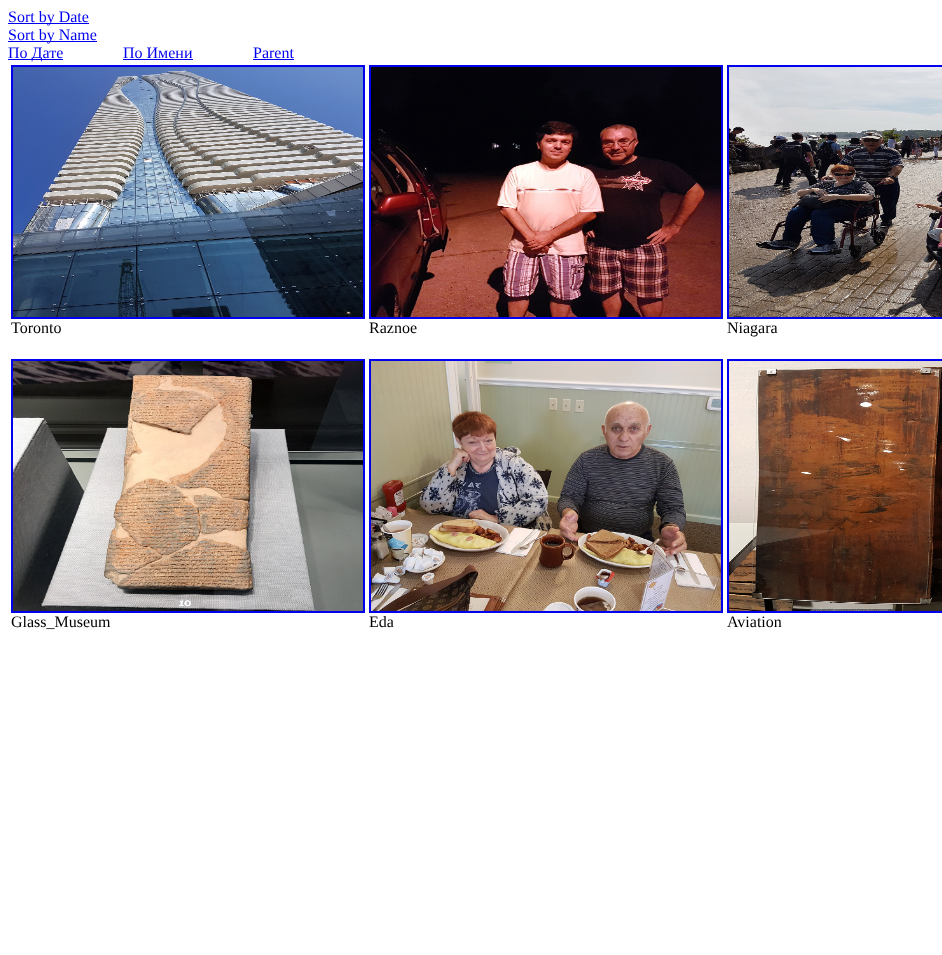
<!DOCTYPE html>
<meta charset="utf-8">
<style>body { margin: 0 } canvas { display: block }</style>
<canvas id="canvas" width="942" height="955"></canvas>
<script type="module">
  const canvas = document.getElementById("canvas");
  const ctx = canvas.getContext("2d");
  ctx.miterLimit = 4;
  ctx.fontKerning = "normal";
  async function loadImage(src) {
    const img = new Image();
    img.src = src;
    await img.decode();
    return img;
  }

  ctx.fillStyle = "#ffffff";
  ctx.fillRect(0, 0, 942, 955);
  ctx.fillStyle = "#0000ee";
  ctx.fillRect(8, 23, 81, 1);
  ctx.font = "16px Liberation Serif";
  ctx.fillText("Sort by Date", 8, 22);
  ctx.fillRect(8, 41, 89, 1);
  ctx.fillText("Sort by Name", 8, 40);
  ctx.fillRect(8, 59, 55, 1);
  ctx.fillText("По Дате", 8, 58);
  ctx.fillText("По Имени", 123, 58);
  ctx.fillRect(123, 59, 70, 1);
  ctx.fillText("Parent", 253, 58);
  ctx.fillRect(253, 59, 41, 1);
  ctx.strokeStyle = "#0000ee";
  ctx.lineWidth = 2;
  ctx.strokeRect(12, 66, 352, 252);
  ctx.drawImage(await loadImage("img1.png"), 13, 67, 350, 250);
  ctx.fillStyle = "#000000";
  ctx.fillText("Toronto", 11, 333);
  ctx.strokeRect(370, 66, 352, 252);
  ctx.drawImage(await loadImage("img2.png"), 371, 67, 350, 250);
  ctx.fillText("Raznoe", 369, 333);
  ctx.strokeRect(728, 66, 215, 252);
  ctx.drawImage(await loadImage("img3.png"), 729, 67, 213, 250);
  ctx.fillText("Niagara", 727, 333);
  ctx.strokeRect(12, 360, 352, 252);
  ctx.drawImage(await loadImage("img4.png"), 13, 361, 350, 250);
  ctx.fillText("Glass_Museum", 11, 627);
  ctx.strokeRect(370, 360, 352, 252);
  ctx.drawImage(await loadImage("img5.png"), 371, 361, 350, 250);
  ctx.fillText("Eda", 369, 627);
  ctx.strokeRect(728, 360, 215, 252);
  ctx.drawImage(await loadImage("img6.png"), 729, 361, 213, 250);
  ctx.fillText("Aviation", 727, 627);
</script>
